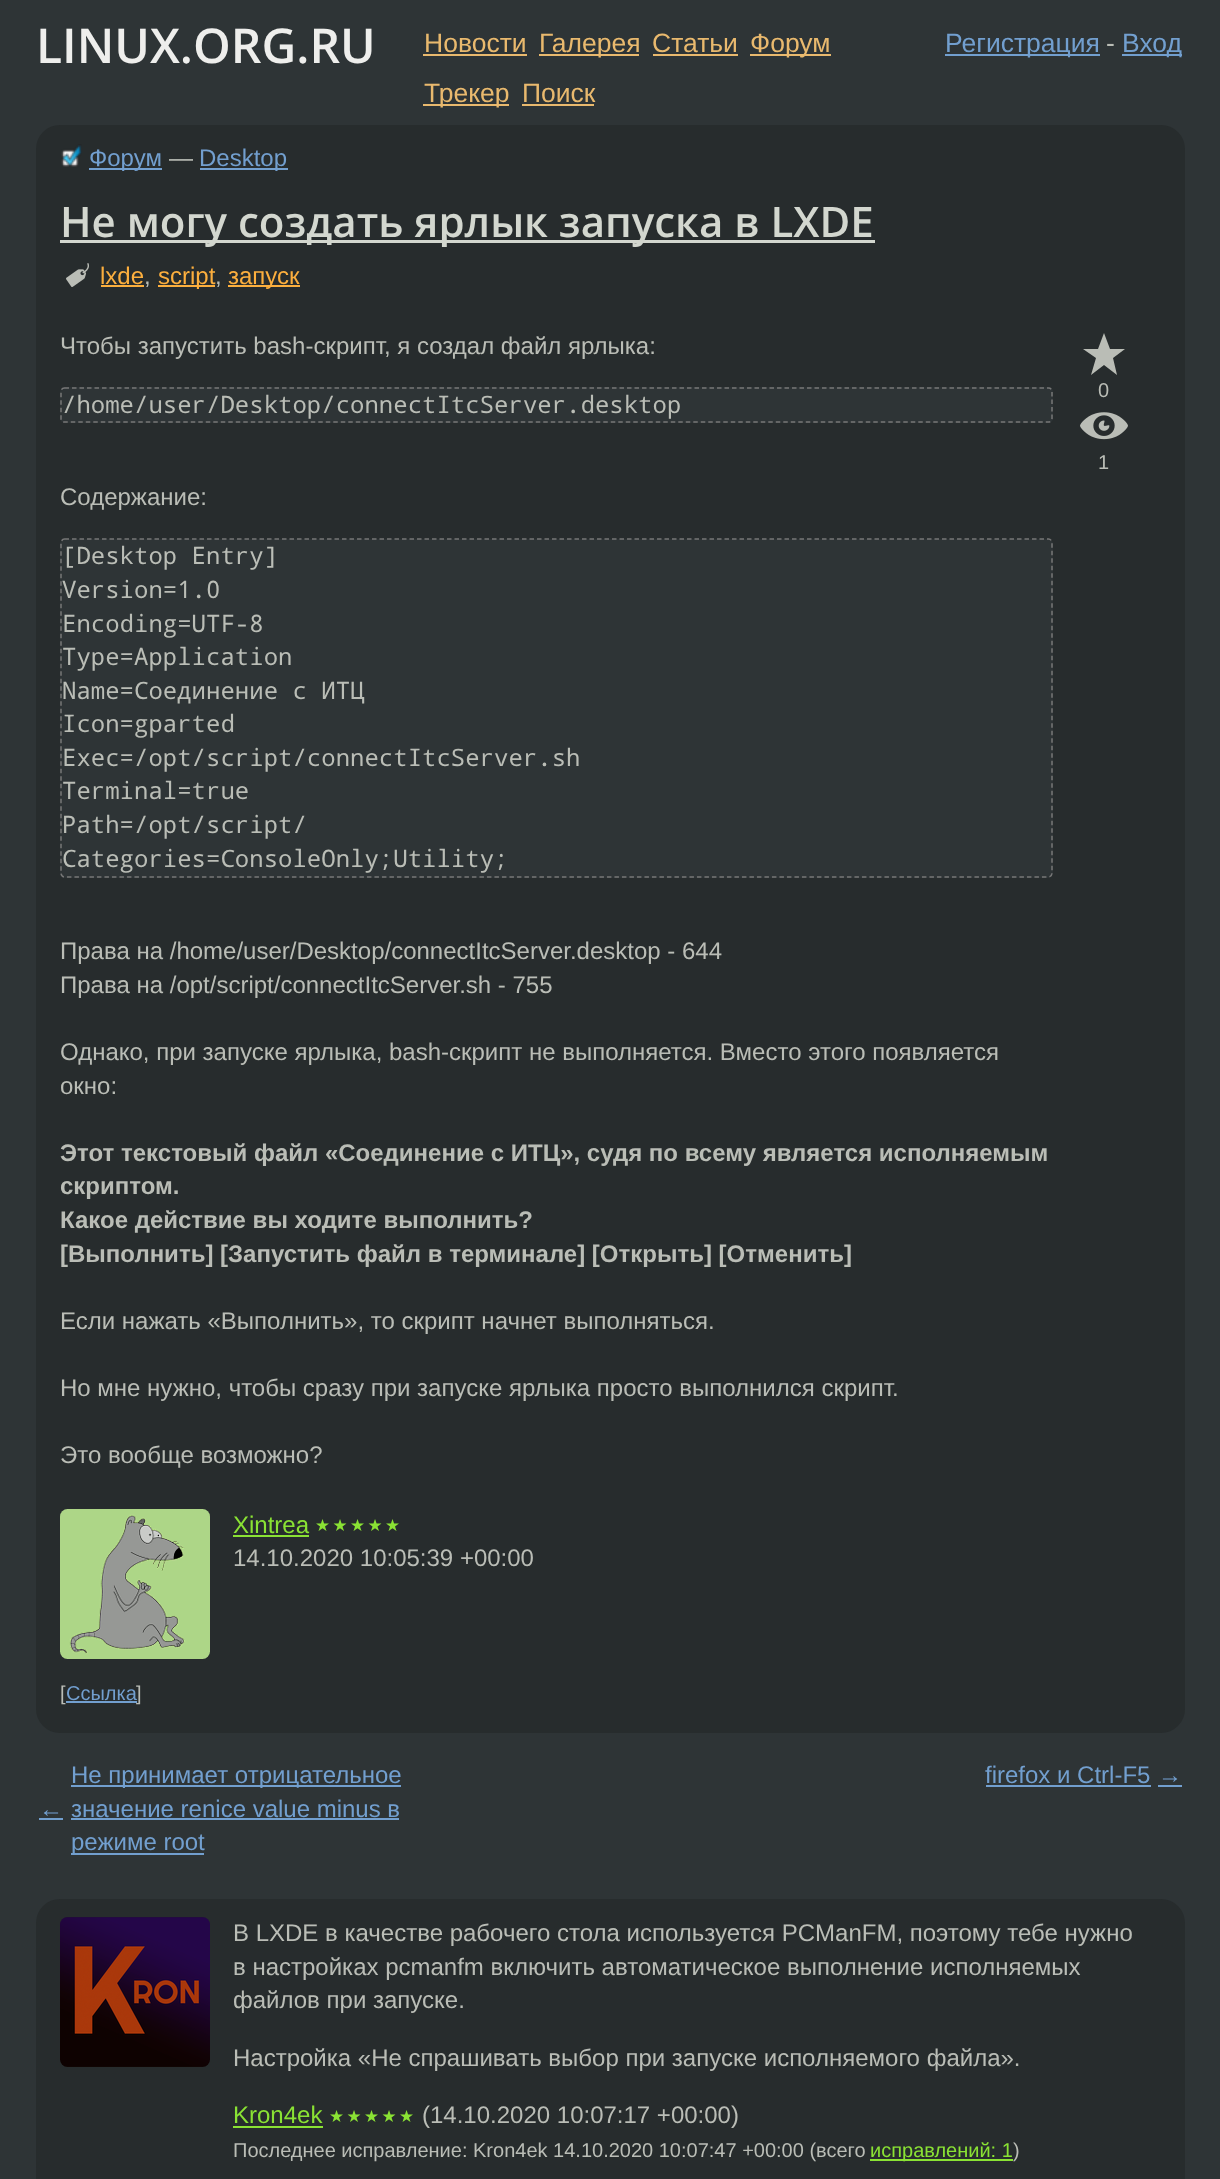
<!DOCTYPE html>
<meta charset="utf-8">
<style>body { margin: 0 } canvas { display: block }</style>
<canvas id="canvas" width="1220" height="2179"></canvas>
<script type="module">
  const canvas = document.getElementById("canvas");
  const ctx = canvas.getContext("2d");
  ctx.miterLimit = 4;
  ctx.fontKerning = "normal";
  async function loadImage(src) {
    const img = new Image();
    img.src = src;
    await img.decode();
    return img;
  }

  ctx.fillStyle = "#2e3436";
  ctx.fillRect(0, 0, 1220, 2179);
  ctx.font = "600 48px Open Sans";
  ctx.fillStyle = "#eeeeec";
  ctx.fillText("LINUX.ORG.RU", 36, 63);
  ctx.font = "26.5px Liberation Sans";
  ctx.fillStyle = "#e9b96e";
  ctx.fillText("Новости", 424, 52);
  ctx.fillRect(423, 54, 104, 2);
  ctx.fillRect(539, 54, 100, 2);
  ctx.fillText("Галерея", 539, 52);
  ctx.fillText("Статьи", 652, 52);
  ctx.fillRect(653, 54, 85, 2);
  ctx.fillRect(750, 54, 81, 2);
  ctx.fillText("Форум", 750, 52);
  ctx.fillRect(423, 104, 86, 2);
  ctx.fillText("Трекер", 424, 102);
  ctx.fillText("Поиск", 522, 102);
  ctx.fillRect(522, 104, 72, 2);
  ctx.fillStyle = "#729fcf";
  ctx.fillRect(945, 54, 155, 2);
  ctx.fillText("Регистрация", 945, 52);
  ctx.fillStyle = "#babdb6";
  ctx.fillText("-", 1106, 52);
  ctx.fillStyle = "#729fcf";
  ctx.fillRect(1122, 54, 60, 2);
  ctx.fillText("Вход", 1122, 52);
  ctx.fillStyle = "#272c2d";
  ctx.beginPath();
  ctx.roundRect(36, 125, 1149, 1608, 24);
  ctx.fill();
  ctx.drawImage(await loadImage("img1.png"), 61, 144, 21, 23);
  ctx.fillStyle = "#729fcf";
  ctx.fillRect(89, 168, 73, 2);
  ctx.font = "24px Liberation Sans";
  ctx.fillText("Форум", 89, 166);
  ctx.fillStyle = "#babdb6";
  ctx.fillText("—", 169, 166);
  ctx.fillStyle = "#729fcf";
  ctx.fillRect(200, 168, 88, 2);
  ctx.fillText("Desktop", 199, 166);
  ctx.fillStyle = "#d3d7cf";
  ctx.fillRect(60, 240, 815, 3);
  ctx.font = "600 42px Open Sans";
  ctx.fillText("Не могу создать ярлык запуска в LXDE", 60, 237);
  ctx.drawImage(await loadImage("img2.png"), 66, 263, 23, 24);
  ctx.font = "24px Liberation Sans";
  ctx.fillStyle = "#fcaf3e";
  ctx.fillText("lxde", 100, 284);
  ctx.fillRect(101, 285, 43, 2);
  ctx.fillStyle = "#babdb6";
  ctx.fillText(",", 144, 284);
  ctx.fillStyle = "#fcaf3e";
  ctx.fillRect(158, 285, 57, 2);
  ctx.fillText("script", 158, 284);
  ctx.fillStyle = "#babdb6";
  ctx.fillText(",", 215, 284);
  ctx.fillStyle = "#fcaf3e";
  ctx.fillRect(228, 285, 72, 2);
  ctx.fillText("запуск", 228, 284);
  ctx.fillStyle = "#babdb6";
  ctx.fillText("Чтобы запустить bash-скрипт, я создал файл ярлыка:", 60, 354);
  ctx.fillStyle = "#2e3436";
  ctx.beginPath();
  ctx.roundRect(60, 387, 993, 36, 5);
  ctx.fill();
  ctx.beginPath();
  ctx.moveTo(64.5, 388);
  ctx.lineTo(1048.5, 388);
  ctx.bezierCurveTo(1050.5, 388, 1052, 389.5, 1052, 391.5);
  ctx.lineTo(1052, 418.5);
  ctx.bezierCurveTo(1052, 420.5, 1050.5, 422, 1048.5, 422);
  ctx.lineTo(64.5, 422);
  ctx.bezierCurveTo(62.5, 422, 61, 420.5, 61, 418.5);
  ctx.lineTo(61, 391.5);
  ctx.bezierCurveTo(61, 389.5, 62.5, 388, 64.5, 388);
  ctx.closePath();
  ctx.strokeStyle = "#777777";
  ctx.lineWidth = 1.5;
  ctx.setLineDash([4.5, 3]);
  ctx.stroke();
  ctx.font = "24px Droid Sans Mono";
  ctx.fillStyle = "#babdb6";
  ctx.fillText("/home/user/Desktop/connectItcServer.desktop", 62, 413);
  ctx.font = "24px Liberation Sans";
  ctx.fillText("Содержание:", 60, 505);
  ctx.fillStyle = "#2e3436";
  ctx.beginPath();
  ctx.roundRect(60, 539, 993, 339, 5);
  ctx.fill();
  ctx.beginPath();
  ctx.moveTo(64.5, 539);
  ctx.lineTo(1048.5, 539);
  ctx.bezierCurveTo(1050.5, 539, 1052, 541, 1052, 543);
  ctx.lineTo(1052, 873);
  ctx.bezierCurveTo(1052, 875, 1050.5, 877, 1048.5, 877);
  ctx.lineTo(64.5, 877);
  ctx.bezierCurveTo(62.5, 877, 61, 875, 61, 873);
  ctx.lineTo(61, 543);
  ctx.bezierCurveTo(61, 541, 62.5, 539, 64.5, 539);
  ctx.closePath();
  ctx.stroke();
  ctx.font = "24px Droid Sans Mono";
  ctx.fillStyle = "#babdb6";
  ctx.fillText("[Desktop Entry]", 62, 564);
  ctx.fillText("Version=1.0", 62, 598);
  ctx.fillText("Encoding=UTF-8", 62, 632);
  ctx.fillText("Type=Application", 62, 665);
  ctx.fillText("Name=Соединение с ИТЦ", 62, 699);
  ctx.fillText("Icon=gparted", 62, 732);
  ctx.fillText("Exec=/opt/script/connectItcServer.sh", 62, 766);
  ctx.fillText("Terminal=true", 62, 799);
  ctx.fillText("Path=/opt/script/", 62, 833);
  ctx.fillText("Categories=ConsoleOnly;Utility;", 62, 867);
  ctx.font = "24px Liberation Sans";
  ctx.fillText("Права на /home/user/Desktop/connectItcServer.desktop - 644", 60, 959);
  ctx.fillText("Права на /opt/script/connectItcServer.sh - 755", 60, 993);
  ctx.fillText("Однако, при запуске ярлыка, bash-скрипт не выполняется. Вместо этого появляется", 60, 1060);
  ctx.fillText("окно:", 60, 1094);
  ctx.font = "bold 24px Liberation Sans";
  ctx.fillText("Этот текстовый файл «Соединение с ИТЦ», судя по всему является исполняемым", 60, 1161);
  ctx.fillText("скриптом.", 60, 1194);
  ctx.fillText("Какое действие вы ходите выполнить?", 60, 1228);
  ctx.fillText("[Выполнить] [Запустить файл в терминале] [Открыть] [Отменить]", 60, 1262);
  ctx.font = "24px Liberation Sans";
  ctx.fillText("Если нажать «Выполнить», то скрипт начнет выполняться.", 60, 1329);
  ctx.fillText("Но мне нужно, чтобы сразу при запуске ярлыка просто выполнился скрипт.", 60, 1396);
  ctx.fillText("Это вообще возможно?", 60, 1463);
  ctx.beginPath();
  ctx.moveTo(1104, 333);
  ctx.lineTo(1110, 349);
  ctx.lineTo(1125, 349);
  ctx.lineTo(1113, 358);
  ctx.lineTo(1117, 375);
  ctx.lineTo(1104, 365);
  ctx.lineTo(1091, 375);
  ctx.lineTo(1096, 358);
  ctx.lineTo(1083, 349);
  ctx.lineTo(1098, 349);
  ctx.closePath();
  ctx.fill();
  ctx.font = "20px Liberation Sans";
  ctx.fillText("0", 1098, 397);
  ctx.drawImage(await loadImage("img3.png"), 1080, 412, 48, 28);
  ctx.fillText("1", 1098, 469);
  ctx.drawImage(await loadImage("img4.png"), 60, 1509, 150, 150);
  ctx.font = "24px Liberation Sans";
  ctx.fillStyle = "#8ae234";
  ctx.fillText("Xintrea", 233, 1533);
  ctx.fillRect(233, 1535, 76, 2);
  ctx.letterSpacing = "2.5px";
  ctx.font = "16.75px DejaVu Sans";
  ctx.fillText("★★★★★", 315, 1531);
  ctx.letterSpacing = "0px";
  ctx.font = "24px Liberation Sans";
  ctx.fillStyle = "#babdb6";
  ctx.fillText("14.10.2020 10:05:39 +00:00", 233, 1566);
  ctx.font = "20px Liberation Sans";
  ctx.fillText("[", 60, 1700);
  ctx.fillStyle = "#729fcf";
  ctx.fillRect(66, 1701, 71, 2);
  ctx.fillText("Ссылка", 66, 1700);
  ctx.fillStyle = "#babdb6";
  ctx.fillText("]", 136, 1700);
  ctx.font = "24px Liberation Sans";
  ctx.fillStyle = "#729fcf";
  ctx.fillText("←", 39, 1817);
  ctx.fillRect(39, 1818, 24, 2);
  ctx.fillRect(71, 1785, 330, 2);
  ctx.fillText("Не принимает отрицательное", 71, 1783);
  ctx.fillText("значение renice value minus в", 71, 1817);
  ctx.fillRect(71, 1818, 328, 2);
  ctx.fillRect(71, 1853, 133, 2);
  ctx.fillText("режиме root", 71, 1850);
  ctx.fillText("firefox и Ctrl-F5", 985, 1783);
  ctx.fillRect(986, 1785, 165, 2);
  ctx.fillText("→", 1158, 1783);
  ctx.fillRect(1158, 1785, 24, 2);
  ctx.fillStyle = "#272c2d";
  ctx.beginPath();
  ctx.roundRect(36, 1899, 1149, 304, 24);
  ctx.fill();
  ctx.drawImage(await loadImage("img5.png"), 60, 1917, 150, 150);
  ctx.fillStyle = "#babdb6";
  ctx.fillText("В LXDE в качестве рабочего стола используется PCManFM, поэтому тебе нужно", 233, 1941);
  ctx.fillText("в настройках pcmanfm включить автоматическое выполнение исполняемых", 233, 1975);
  ctx.fillText("файлов при запуске.", 233, 2008);
  ctx.fillText("Настройка «Не спрашивать выбор при запуске исполняемого файла».", 233, 2066);
  ctx.fillStyle = "#8ae234";
  ctx.fillText("Kron4ek", 233, 2123);
  ctx.fillRect(233, 2126, 90, 2);
  ctx.letterSpacing = "2.5px";
  ctx.font = "16.75px DejaVu Sans";
  ctx.fillText("★★★★★", 329, 2122);
  ctx.letterSpacing = "0px";
  ctx.font = "24px Liberation Sans";
  ctx.fillStyle = "#babdb6";
  ctx.fillText("(14.10.2020 10:07:17 +00:00)", 422, 2123);
  ctx.font = "20px Liberation Sans";
  ctx.fillText("Последнее исправление: Kron4ek 14.10.2020 10:07:47 +00:00 (всего", 233, 2157);
  ctx.fillStyle = "#8ae234";
  ctx.fillRect(870, 2159, 143, 2);
  ctx.fillText("исправлений: 1", 870, 2157);
  ctx.fillStyle = "#babdb6";
  ctx.fillText(")", 1013, 2157);
</script>
